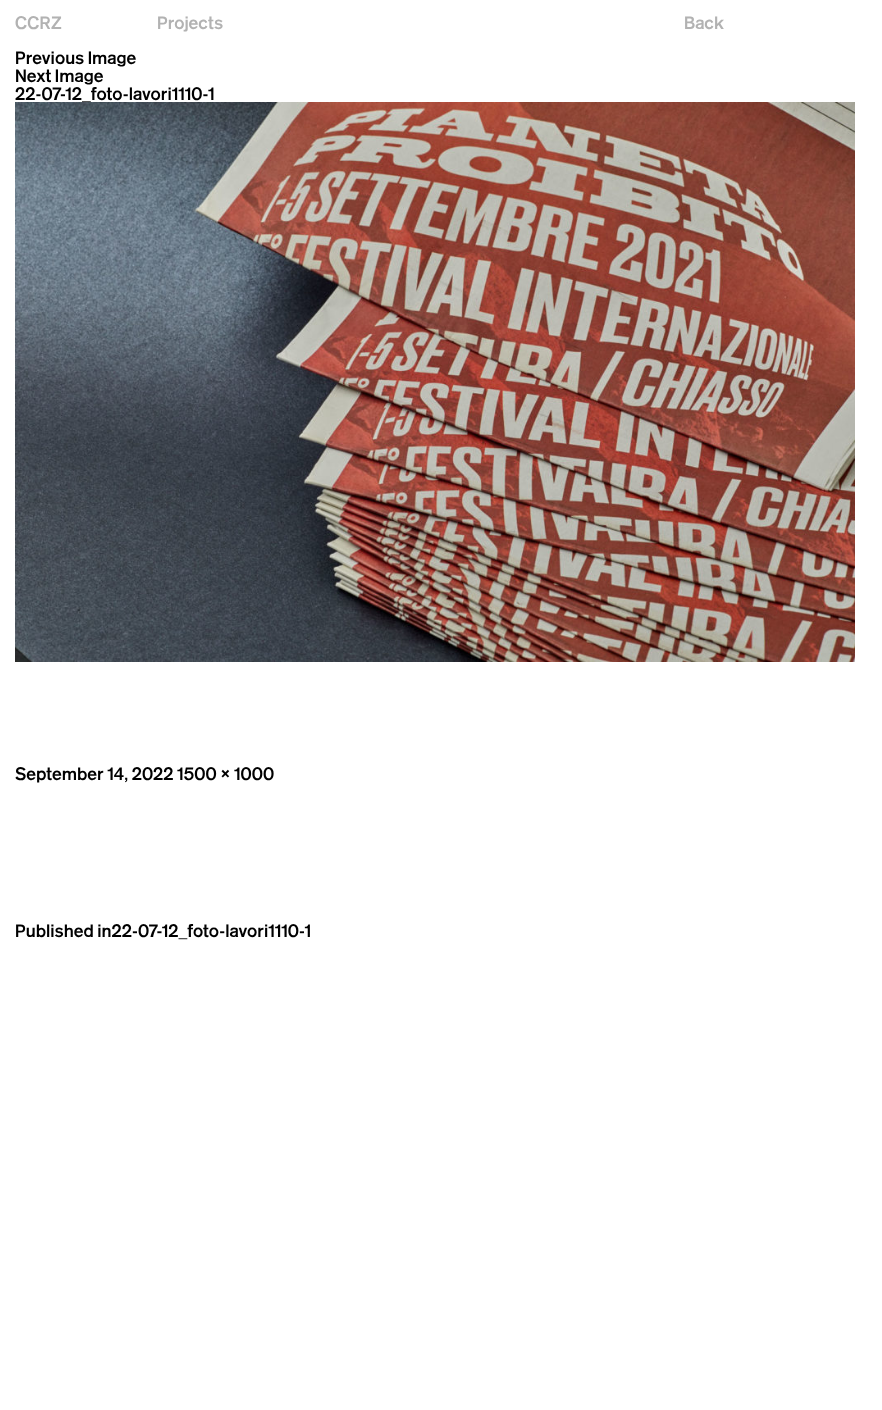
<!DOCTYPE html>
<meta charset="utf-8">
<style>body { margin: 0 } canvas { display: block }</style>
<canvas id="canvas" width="882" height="1410"></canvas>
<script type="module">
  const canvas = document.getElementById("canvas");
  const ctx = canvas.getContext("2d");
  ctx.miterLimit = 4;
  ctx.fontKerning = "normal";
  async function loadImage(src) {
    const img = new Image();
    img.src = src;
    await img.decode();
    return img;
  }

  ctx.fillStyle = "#ffffff";
  ctx.fillRect(0, 0, 882, 1410);
  ctx.font = "500 18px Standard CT";
  ctx.fillStyle = "#b2b2b2";
  ctx.fillText("CCRZ", 15, 29);
  ctx.fillText("Projects", 157, 29);
  ctx.fillText("Back", 684, 29);
  ctx.fillStyle = "#000000";
  ctx.fillText("Previous Image", 15, 64);
  ctx.fillText("Next Image", 15, 82);
  ctx.fillText("22-07-12_foto-lavori1110-1", 15, 100);
  ctx.drawImage(await loadImage("img1.png"), 15, 102, 840, 560);
  ctx.fillText("September 14, 2022 1500 × 1000", 15, 780);
  ctx.fillText("Published in22-07-12_foto-lavori1110-1", 15, 937);
</script>
